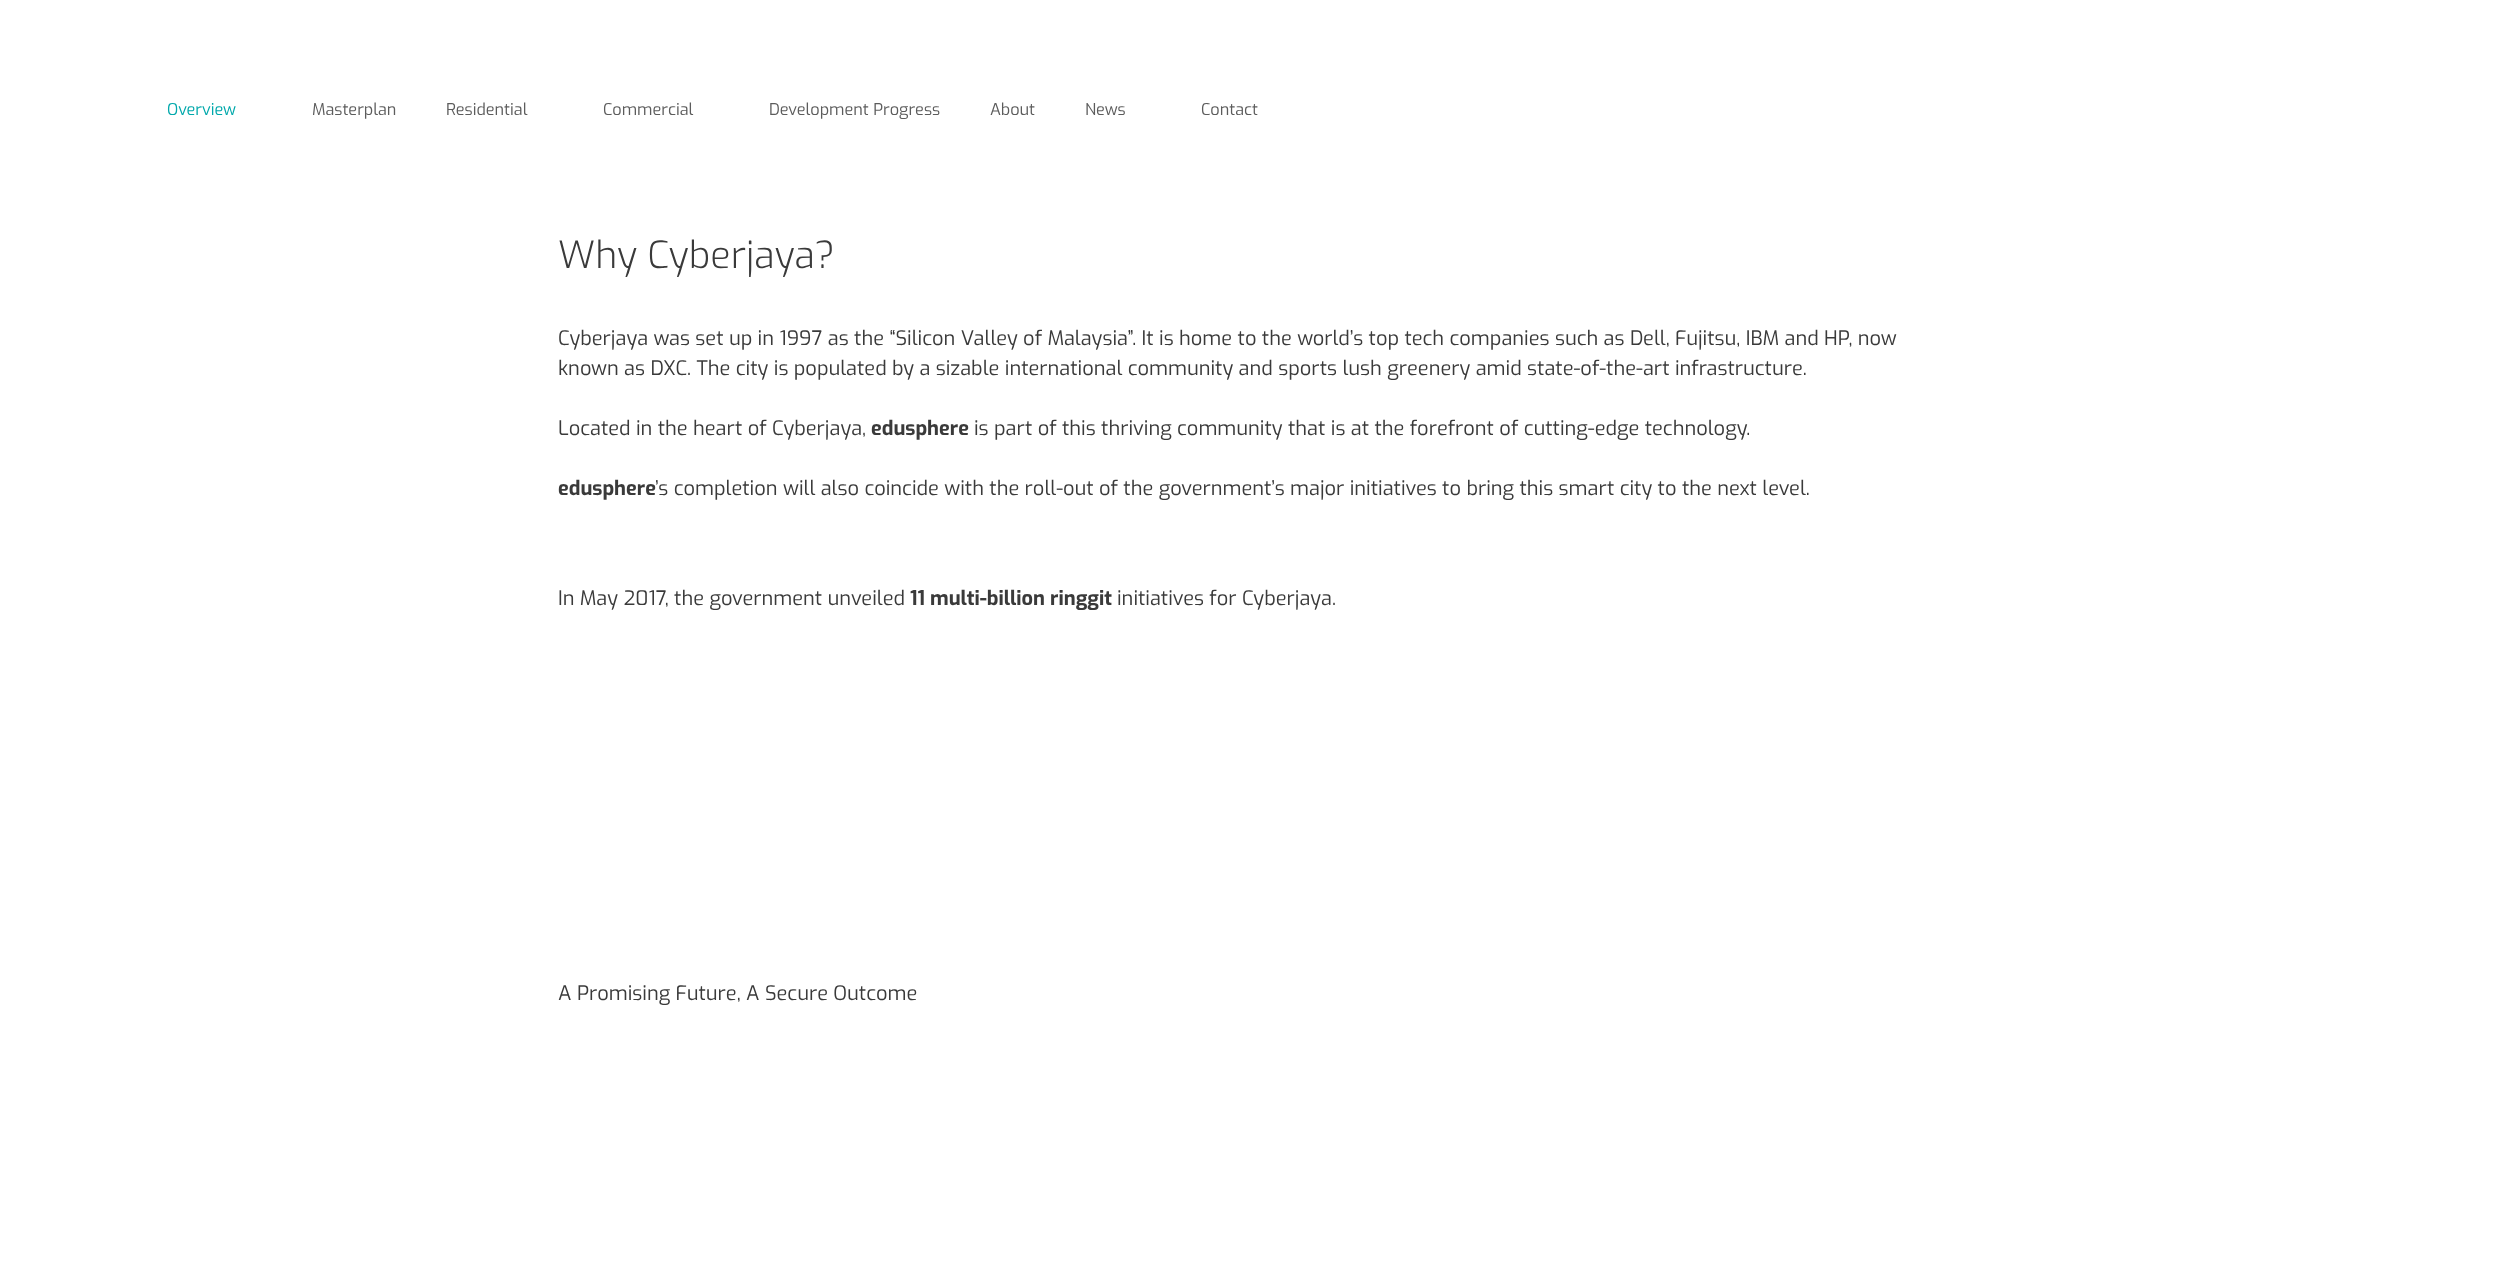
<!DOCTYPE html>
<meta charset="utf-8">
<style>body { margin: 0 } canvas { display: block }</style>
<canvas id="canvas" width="2514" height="1272"></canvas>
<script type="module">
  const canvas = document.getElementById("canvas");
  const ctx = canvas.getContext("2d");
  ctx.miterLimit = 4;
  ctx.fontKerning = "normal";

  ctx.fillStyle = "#ffffff";
  ctx.fillRect(0, 0, 2514, 1272);
  ctx.font = "16.25px Exo";
  ctx.fillStyle = "#00a8ab";
  ctx.fillText("Overview", 167, 115);
  ctx.fillStyle = "#5c5c5c";
  ctx.fillText("Masterplan", 312, 115);
  ctx.fillText("Residential", 446, 115);
  ctx.fillText("Commercial", 603, 115);
  ctx.fillText("Development Progress", 769, 115);
  ctx.fillText("About", 990, 115);
  ctx.fillText("News", 1085, 115);
  ctx.fillText("Contact", 1201, 115);
  ctx.font = "300 37.5px Exo";
  ctx.fillStyle = "#3a3a3a";
  ctx.fillText("Why Cyberjaya?", 558, 268);
  ctx.font = "20px Exo";
  ctx.fillText("Cyberjaya was set up in 1997 as the “Silicon Valley of Malaysia”. It is home to the world’s top tech companies such as Dell, Fujitsu, IBM and HP, now", 558, 345);
  ctx.fillText("known as DXC. The city is populated by a sizable international community and sports lush greenery amid state-of-the-art infrastructure.", 558, 375);
  ctx.fillText("Located in the heart of Cyberjaya,", 558, 435);
  ctx.font = "bold 20px Exo";
  ctx.fillText("edusphere", 871, 435);
  ctx.font = "20px Exo";
  ctx.fillText("is part of this thriving community that is at the forefront of cutting-edge technology.", 974, 435);
  ctx.font = "bold 20px Exo";
  ctx.fillText("edusphere", 558, 495);
  ctx.font = "20px Exo";
  ctx.fillText("’s completion will also coincide with the roll-out of the government’s major initiatives to bring this smart city to the next level.", 655, 495);
  ctx.fillText("In May 2017, the government unveiled", 558, 605);
  ctx.font = "bold 20px Exo";
  ctx.fillText("11 multi-billion ringgit", 910, 605);
  ctx.font = "20px Exo";
  ctx.fillText("initiatives for Cyberjaya.", 1117, 605);
  ctx.fillText("A Promising Future, A Secure Outcome", 558, 1000);
</script>
